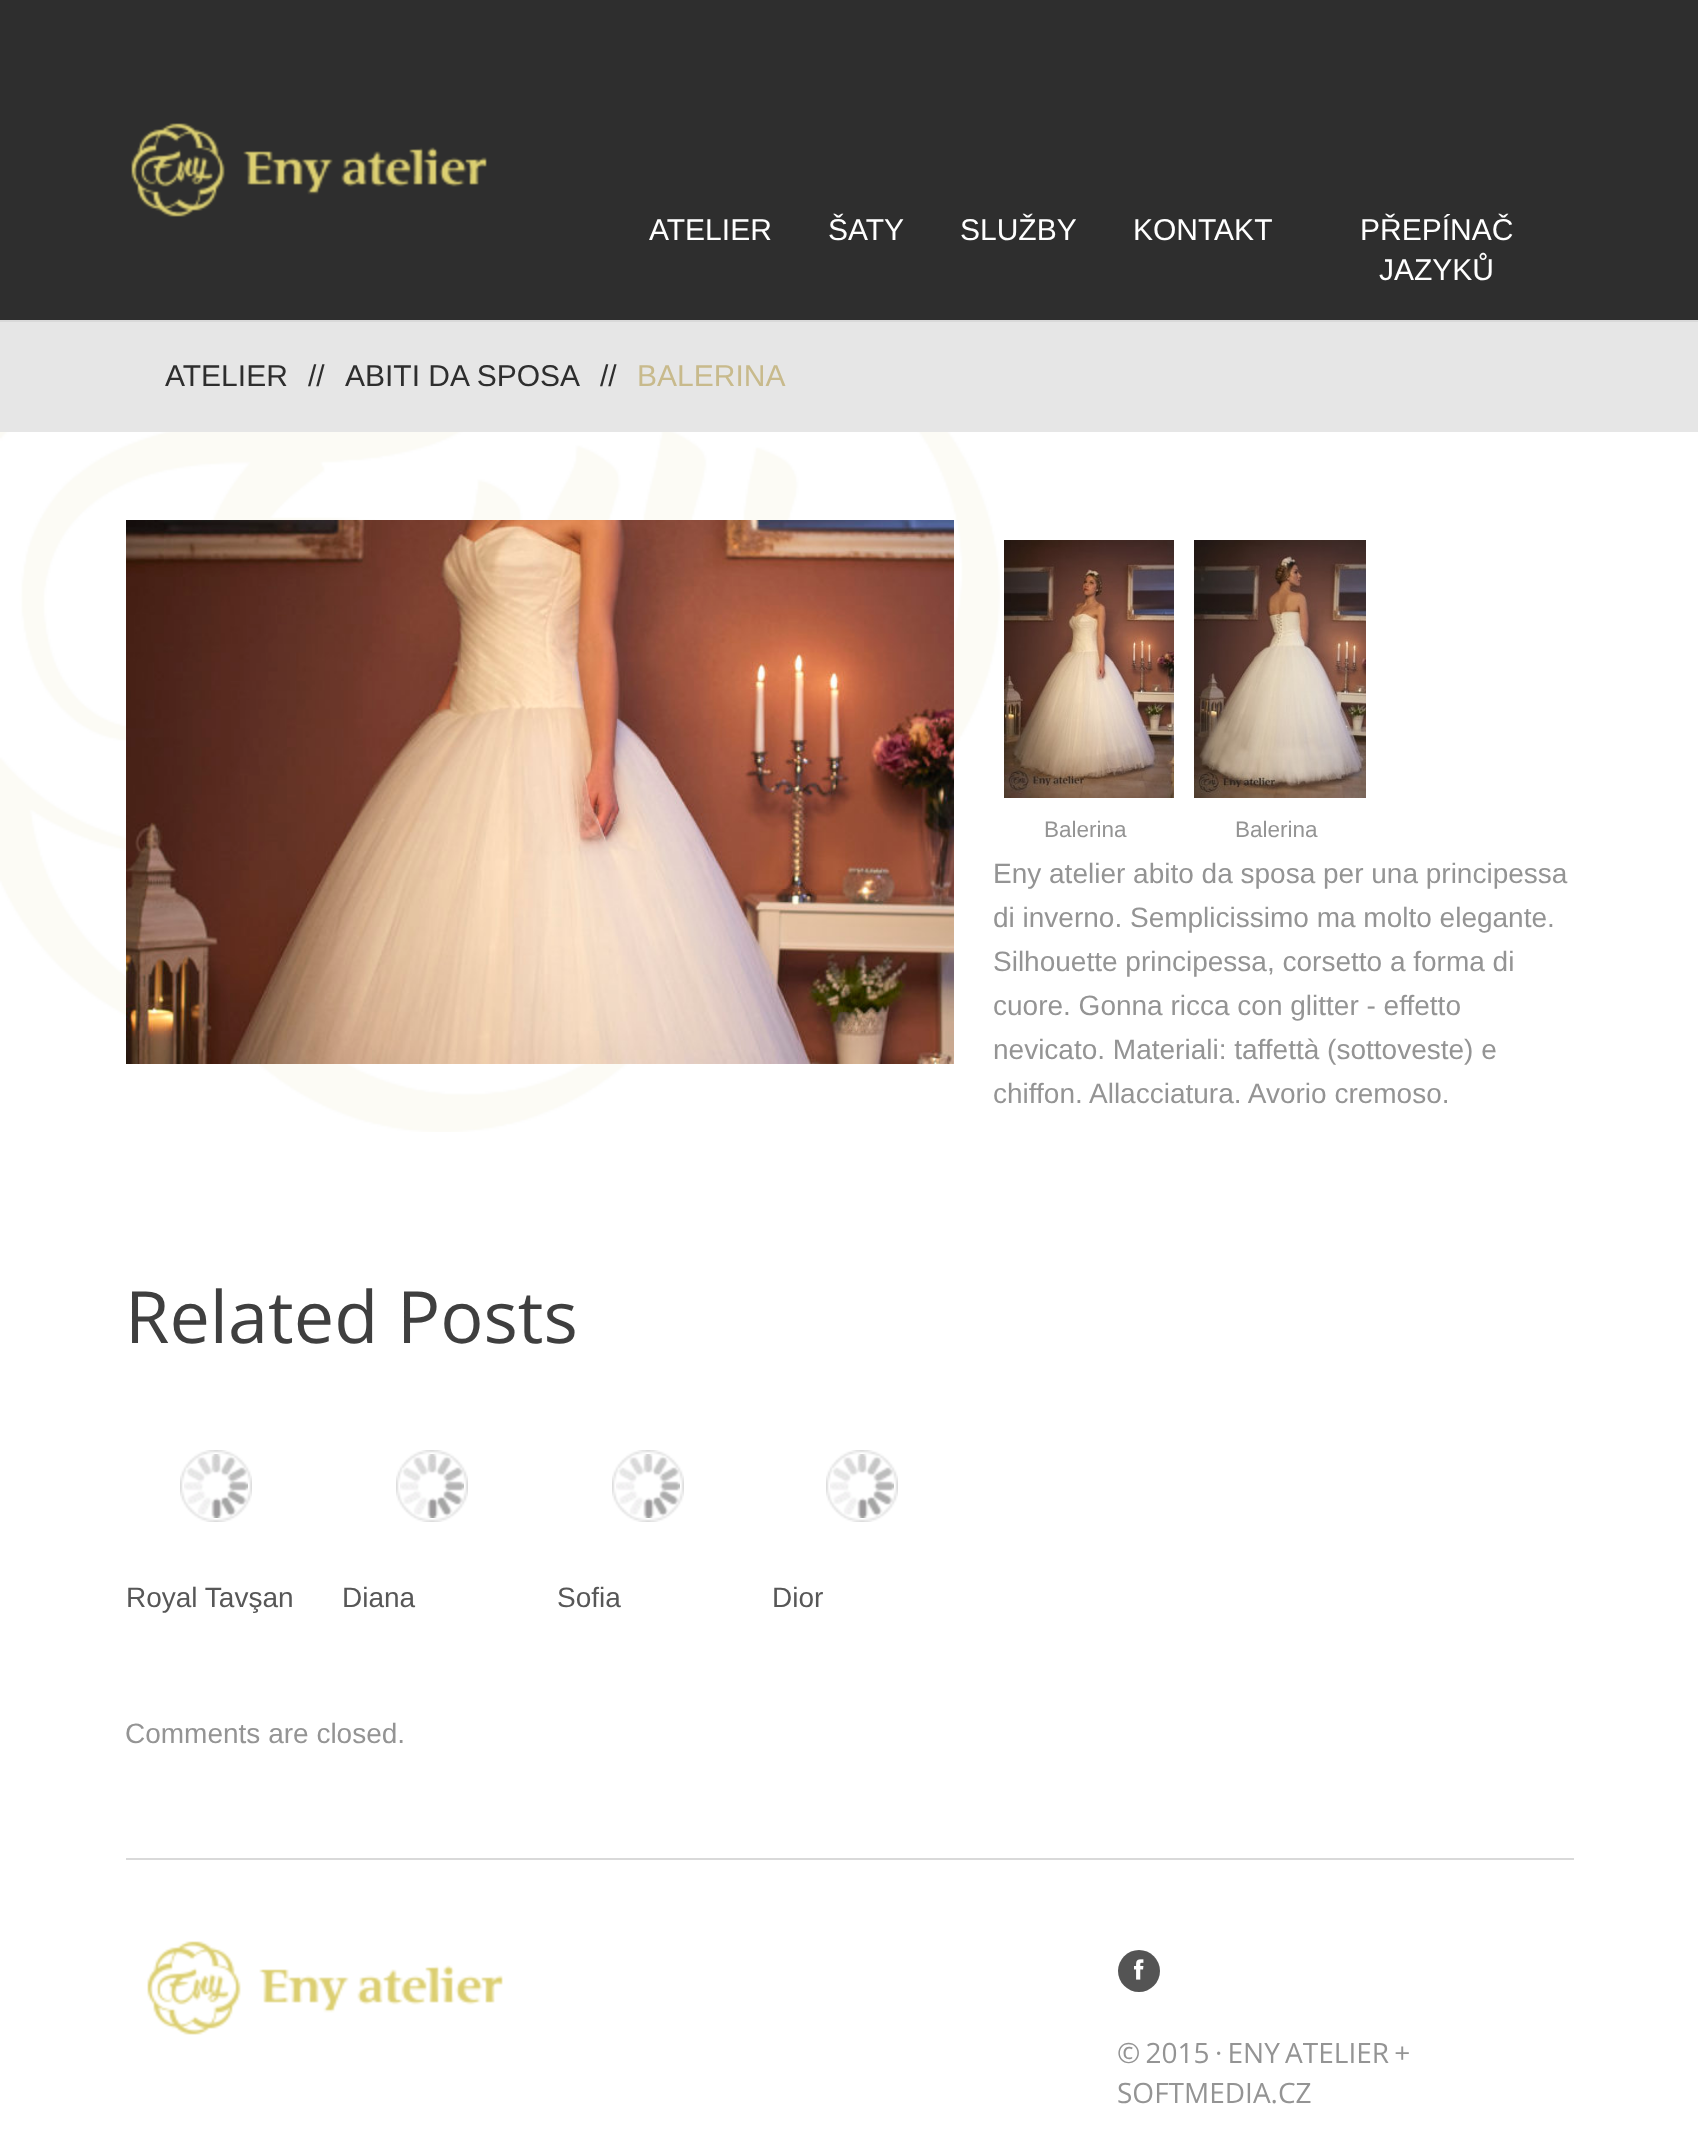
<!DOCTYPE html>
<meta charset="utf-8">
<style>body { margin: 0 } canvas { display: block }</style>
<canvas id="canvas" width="1698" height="2137"></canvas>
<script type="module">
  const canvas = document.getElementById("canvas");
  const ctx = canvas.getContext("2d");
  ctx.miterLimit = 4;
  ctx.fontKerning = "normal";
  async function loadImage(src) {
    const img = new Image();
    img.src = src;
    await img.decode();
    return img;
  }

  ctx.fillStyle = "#ffffff";
  ctx.fillRect(0, 0, 1698, 2137);
  ctx.fillStyle = "#2e2e2e";
  ctx.fillRect(0, 0, 1698, 320);
  ctx.drawImage(await loadImage("img1.png"), 131, 123, 356, 94);
  ctx.font = "30px Liberation Sans";
  ctx.fillStyle = "#ffffff";
  ctx.fillText("ATELIER", 649, 240);
  ctx.fillText("ŠATY", 828, 240);
  ctx.fillText("SLUŽBY", 960, 240);
  ctx.fillText("KONTAKT", 1133, 240);
  ctx.fillText("PŘEPÍNAČ", 1360, 240);
  ctx.fillText("JAZYKŮ", 1379, 280);
  ctx.drawImage(await loadImage("img2.png"), 0, 432, 1000, 700);
  ctx.fillStyle = "#e6e6e6";
  ctx.fillRect(0, 322, 1698, 110);
  ctx.fillStyle = "#d9d9d9";
  ctx.fillRect(0, 320, 1698, 2);
  ctx.fillStyle = "#2e2e2e";
  ctx.fillText("ATELIER", 165, 386);
  ctx.fillText("//", 308, 386);
  ctx.fillText("ABITI DA SPOSA", 345, 386);
  ctx.fillText("//", 600, 386);
  ctx.fillStyle = "#c8ba8c";
  ctx.fillText("BALERINA", 637, 386);
  ctx.drawImage(await loadImage("img3.png"), 126, 520, 828, 544);
  ctx.drawImage(await loadImage("img4.png"), 1004, 540, 170, 258);
  ctx.font = "22.5px Liberation Sans";
  ctx.fillStyle = "#949494";
  ctx.fillText("Balerina", 1044, 837);
  ctx.drawImage(await loadImage("img5.png"), 1194, 540, 172, 258);
  ctx.fillText("Balerina", 1235, 837);
  ctx.font = "28px Liberation Sans";
  ctx.fillText("Eny atelier abito da sposa per una principessa", 993, 883);
  ctx.fillText("di inverno. Semplicissimo ma molto elegante.", 993, 927);
  ctx.fillText("Silhouette principessa, corsetto a forma di", 993, 971);
  ctx.fillText("cuore. Gonna ricca con glitter - effetto", 993, 1015);
  ctx.fillText("nevicato. Materiali: taffettà (sottoveste) e", 993, 1059);
  ctx.fillText("chiffon. Allacciatura. Avorio cremoso.", 993, 1103);
  ctx.font = "72px Open Sans";
  ctx.fillStyle = "#3f3f3f";
  ctx.fillText("Related Posts", 125, 1343);
  ctx.drawImage(await loadImage("img6.png"), 180, 1450, 72, 72);
  ctx.font = "28px Liberation Sans";
  ctx.fillStyle = "#575757";
  ctx.fillText("Royal Tavşan", 126, 1607);
  ctx.drawImage(await loadImage("img6.png"), 396, 1450, 72, 72);
  ctx.fillText("Diana", 342, 1607);
  ctx.drawImage(await loadImage("img6.png"), 612, 1450, 72, 72);
  ctx.fillText("Sofia", 557, 1607);
  ctx.drawImage(await loadImage("img6.png"), 826, 1450, 72, 72);
  ctx.fillText("Dior", 772, 1607);
  ctx.fillStyle = "#949494";
  ctx.fillText("Comments are closed.", 125, 1743);
  ctx.fillStyle = "#d9d9d9";
  ctx.fillRect(126, 1858, 1448, 2);
  ctx.drawImage(await loadImage("img7.png"), 147, 1941, 356, 94);
  ctx.fillStyle = "#545454";
  ctx.beginPath();
  ctx.arc(1139, 1971, 21, 0, Math.PI * 2);
  ctx.fill();
  ctx.drawImage(await loadImage("img8.png"), 1134, 1959, 10, 21);
  ctx.wordSpacing = "-2px";
  ctx.font = "28px Open Sans";
  ctx.fillStyle = "#949494";
  ctx.fillText("© 2015 · ENY ATELIER +", 1117, 2063);
  ctx.wordSpacing = "0px";
  ctx.fillText("SOFTMEDIA.CZ", 1117, 2103);
</script>
